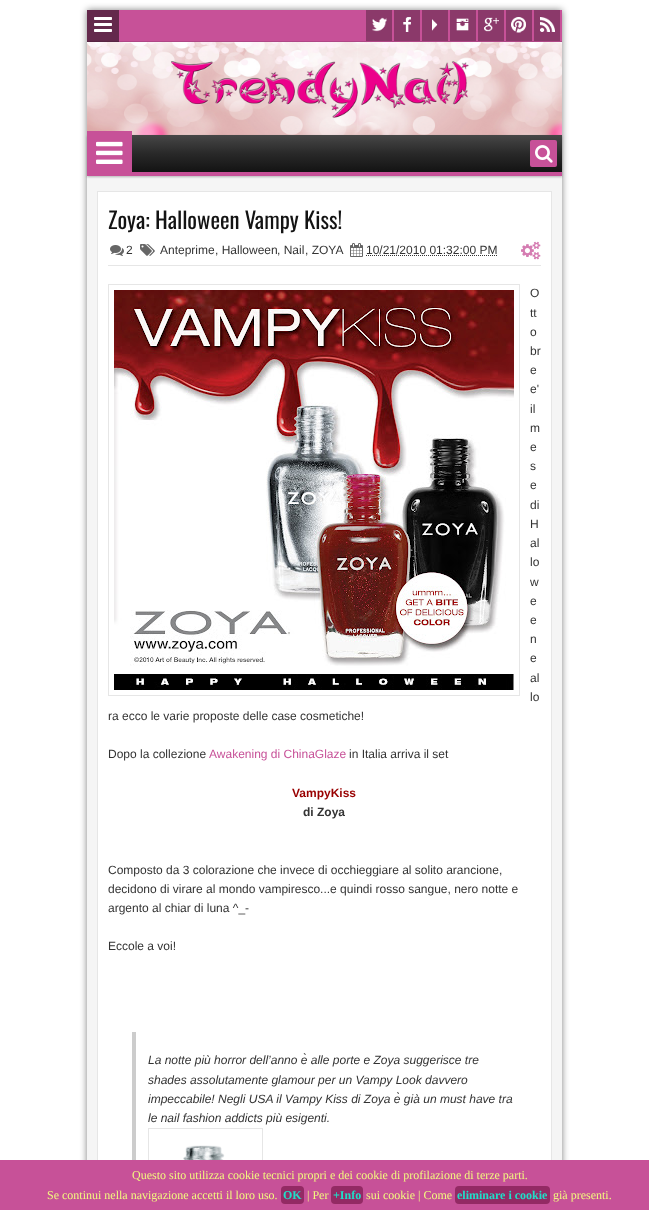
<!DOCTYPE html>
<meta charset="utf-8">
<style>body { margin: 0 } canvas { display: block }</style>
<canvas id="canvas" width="649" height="1210"></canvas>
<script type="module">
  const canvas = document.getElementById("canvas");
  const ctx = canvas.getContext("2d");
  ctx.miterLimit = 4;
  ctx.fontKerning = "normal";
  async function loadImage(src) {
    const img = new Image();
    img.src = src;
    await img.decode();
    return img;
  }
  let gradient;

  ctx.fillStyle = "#ffffff";
  ctx.fillRect(0, 0, 649, 1210);
  ctx.fillStyle = "rgba(0, 0, 0, 0.5)";
  ctx.filter = "blur(3.5px)";
  ctx.beginPath();
  ctx.rect(87, 10, 475, 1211);
  ctx.fill();
  ctx.filter = "none";
  ctx.fillStyle = "#f5f5f5";
  ctx.fillRect(87, 176, 475, 984);
  ctx.fillStyle = "#c75198";
  ctx.fillRect(119, 10, 443, 31);
  ctx.fillStyle = "#64294c";
  ctx.fillRect(87, 10, 32, 31);
  ctx.fillStyle = "#af4786";
  ctx.fillRect(119, 41, 443, 1);
  ctx.fillStyle = "#582443";
  ctx.fillRect(87, 41, 32, 1);
  ctx.drawImage(await loadImage("img1.png"), 94, 17, 18, 15);
  ctx.fillStyle = "#8b396a";
  ctx.fillRect(366, 10, 26, 31);
  ctx.drawImage(await loadImage("img2.png"), 372, 17, 15, 15);
  ctx.fillRect(394, 10, 26, 31);
  ctx.drawImage(await loadImage("img3.png"), 403, 17, 8, 15);
  ctx.fillRect(422, 10, 26, 31);
  ctx.drawImage(await loadImage("img4.png"), 432, 19, 6, 12);
  ctx.fillRect(450, 10, 26, 31);
  ctx.drawImage(await loadImage("img5.png"), 456, 18, 13, 13);
  ctx.fillRect(478, 10, 26, 31);
  ctx.drawImage(await loadImage("img6.png"), 484, 17, 15, 15);
  ctx.fillRect(506, 10, 26, 31);
  ctx.drawImage(await loadImage("img7.png"), 511, 17, 15, 16);
  ctx.fillRect(534, 10, 26, 31);
  ctx.drawImage(await loadImage("img8.png"), 540, 17, 15, 15);
  ctx.drawImage(await loadImage("img9.png"), 87, 42, 475, 93);
  ctx.fillStyle = "rgba(0, 0, 0, 0.26)";
  ctx.filter = "blur(1px)";
  ctx.beginPath();
  ctx.rect(87, 136, 475, 41);
  ctx.fill();
  ctx.filter = "none";
  ctx.fillStyle = "#c75198";
  ctx.fillRect(87, 131, 45, 45);
  ctx.drawImage(await loadImage("img10.png"), 96, 141, 27, 23);
  gradient = ctx.createLinearGradient(325, 135, 325, 172);
  gradient.addColorStop(0, "#474747");
  gradient.addColorStop(0.5, "#292929");
  gradient.addColorStop(1, "#131313");
  ctx.fillStyle = gradient;
  ctx.fillRect(132, 135, 430, 37);
  ctx.fillStyle = "#c75198";
  ctx.beginPath();
  ctx.roundRect(530, 140, 27, 27, 2);
  ctx.fill();
  ctx.drawImage(await loadImage("img11.png"), 535, 145, 18, 18);
  ctx.fillRect(132, 172, 430, 4);
  ctx.fillStyle = "#ffffff";
  ctx.fillRect(98, 192, 453, 968);
  ctx.strokeStyle = "#e6e6e6";
  ctx.strokeRect(97.5, 191.5, 454, 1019);
  ctx.font = "22.75px Oswald";
  ctx.fillStyle = "#131313";
  ctx.fillText("Zoya: Halloween Vampy Kiss!", 108, 229);
  ctx.fillStyle = "#e6e6e6";
  ctx.fillRect(108, 265, 433, 1);
  ctx.drawImage(await loadImage("img12.png"), 110, 245, 14, 11);
  ctx.font = "12px Liberation Sans";
  ctx.fillStyle = "#333333";
  ctx.fillText("2", 126, 254);
  ctx.drawImage(await loadImage("img13.png"), 140, 244, 15, 12);
  ctx.fillText("Anteprime", 160, 254);
  ctx.fillText(", Halloween", 215, 254);
  ctx.fillText(", Nail", 277, 254);
  ctx.fillText(", ZOYA", 305, 254);
  ctx.drawImage(await loadImage("img14.png"), 350, 243, 13, 14);
  ctx.fillText("10/21/2010 01:32:00 PM", 366, 254);
  ctx.beginPath();
  ctx.moveTo(366, 255.5);
  ctx.lineTo(497.5, 255.5);
  ctx.strokeStyle = "#333333";
  ctx.setLineDash([1, 1]);
  ctx.stroke();
  ctx.drawImage(await loadImage("img15.png"), 521, 241, 20, 19);
  ctx.strokeStyle = "#e6e6e6";
  ctx.setLineDash([]);
  ctx.strokeRect(108.5, 284.5, 411, 411);
  ctx.drawImage(await loadImage("img16.png"), 114, 290, 400, 400);
  ctx.fillText("O", 530, 297);
  ctx.fillText("tt", 530, 317);
  ctx.fillText("o", 530, 336);
  ctx.fillText("br", 530, 355);
  ctx.fillText("e", 530, 374);
  ctx.fillText("e'", 530, 393);
  ctx.fillText("il", 530, 413);
  ctx.fillText("m", 530, 432);
  ctx.fillText("e", 530, 451);
  ctx.fillText("s", 530, 470);
  ctx.fillText("e", 530, 489);
  ctx.fillText("di", 530, 509);
  ctx.fillText("H", 530, 528);
  ctx.fillText("al", 530, 547);
  ctx.fillText("lo", 530, 566);
  ctx.fillText("w", 530, 586);
  ctx.fillText("e", 530, 605);
  ctx.fillText("e", 530, 624);
  ctx.fillText("n", 530, 643);
  ctx.fillText("e", 530, 662);
  ctx.fillText("al", 530, 682);
  ctx.fillText("lo", 530, 701);
  ctx.fillText("ra ecco le varie proposte delle case cosmetiche!", 108, 720);
  ctx.fillText("Dopo la collezione", 108, 758);
  ctx.fillStyle = "#c75198";
  ctx.fillText("Awakening di ChinaGlaze", 209, 758);
  ctx.fillStyle = "#333333";
  ctx.fillText("in Italia arriva il set", 349, 758);
  ctx.font = "bold 12px Liberation Sans";
  ctx.fillStyle = "#990000";
  ctx.fillText("VampyKiss", 292, 797);
  ctx.fillStyle = "#333333";
  ctx.fillText("di Zoya", 303, 816);
  ctx.font = "12px Liberation Sans";
  ctx.fillText("Composto da 3 colorazione che invece di occhieggiare al solito arancione,", 108, 874);
  ctx.fillText("decidono di virare al mondo vampiresco...e quindi rosso sangue, nero notte e", 108, 893);
  ctx.fillText("argento al chiar di luna ^_-", 108, 912);
  ctx.fillText("Eccole a voi!", 108, 950);
  ctx.fillStyle = "#cccccc";
  ctx.fillRect(132, 1032, 4, 128);
  ctx.font = "italic 12px Liberation Sans";
  ctx.fillStyle = "#333333";
  ctx.fillText("La notte più horror dell’anno è alle porte e Zoya suggerisce tre", 148, 1064);
  ctx.fillText("shades assolutamente glamour per un Vampy Look davvero", 148, 1084);
  ctx.fillText("impeccabile! Negli USA il Vampy Kiss di Zoya è già un must have tra", 148, 1103);
  ctx.fillText("le nail fashion addicts più esigenti.", 148, 1122);
  ctx.strokeRect(148.5, 1128.5, 114, 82);
  ctx.drawImage(await loadImage("img17.png"), 157, 1145, 92, 15);
  ctx.fillStyle = "#c75198";
  ctx.fillRect(0, 1160, 649, 50);
  ctx.font = "12px Liberation Serif";
  ctx.fillStyle = "#f2f97f";
  ctx.fillText("Questo sito utilizza cookie tecnici propri e dei cookie di profilazione di terze parti.", 132, 1179);
  ctx.fillText("Se continui nella navigazione accetti il loro uso.", 47, 1199);
  ctx.fillStyle = "#932a64";
  ctx.beginPath();
  ctx.roundRect(281, 1186, 23, 18, 4);
  ctx.fill();
  ctx.font = "bold 12px Liberation Serif";
  ctx.fillStyle = "#1fe0c9";
  ctx.fillText("OK", 283, 1199);
  ctx.font = "12px Liberation Serif";
  ctx.fillStyle = "#f2f97f";
  ctx.fillText("| Per", 307, 1199);
  ctx.fillStyle = "#932a64";
  ctx.beginPath();
  ctx.roundRect(331, 1186, 32, 18, 4);
  ctx.fill();
  ctx.font = "bold 12px Liberation Serif";
  ctx.fillStyle = "#1fe0c9";
  ctx.fillText("+Info", 333, 1199);
  ctx.font = "12px Liberation Serif";
  ctx.fillStyle = "#f2f97f";
  ctx.fillText("sui cookie | Come", 366, 1199);
  ctx.fillStyle = "#932a64";
  ctx.beginPath();
  ctx.roundRect(455, 1186, 95, 18, 4);
  ctx.fill();
  ctx.font = "bold 12px Liberation Serif";
  ctx.fillStyle = "#1fe0c9";
  ctx.fillText("eliminare i cookie", 457, 1199);
  ctx.font = "12px Liberation Serif";
  ctx.fillStyle = "#f2f97f";
  ctx.fillText("già presenti.", 553, 1199);
</script>
